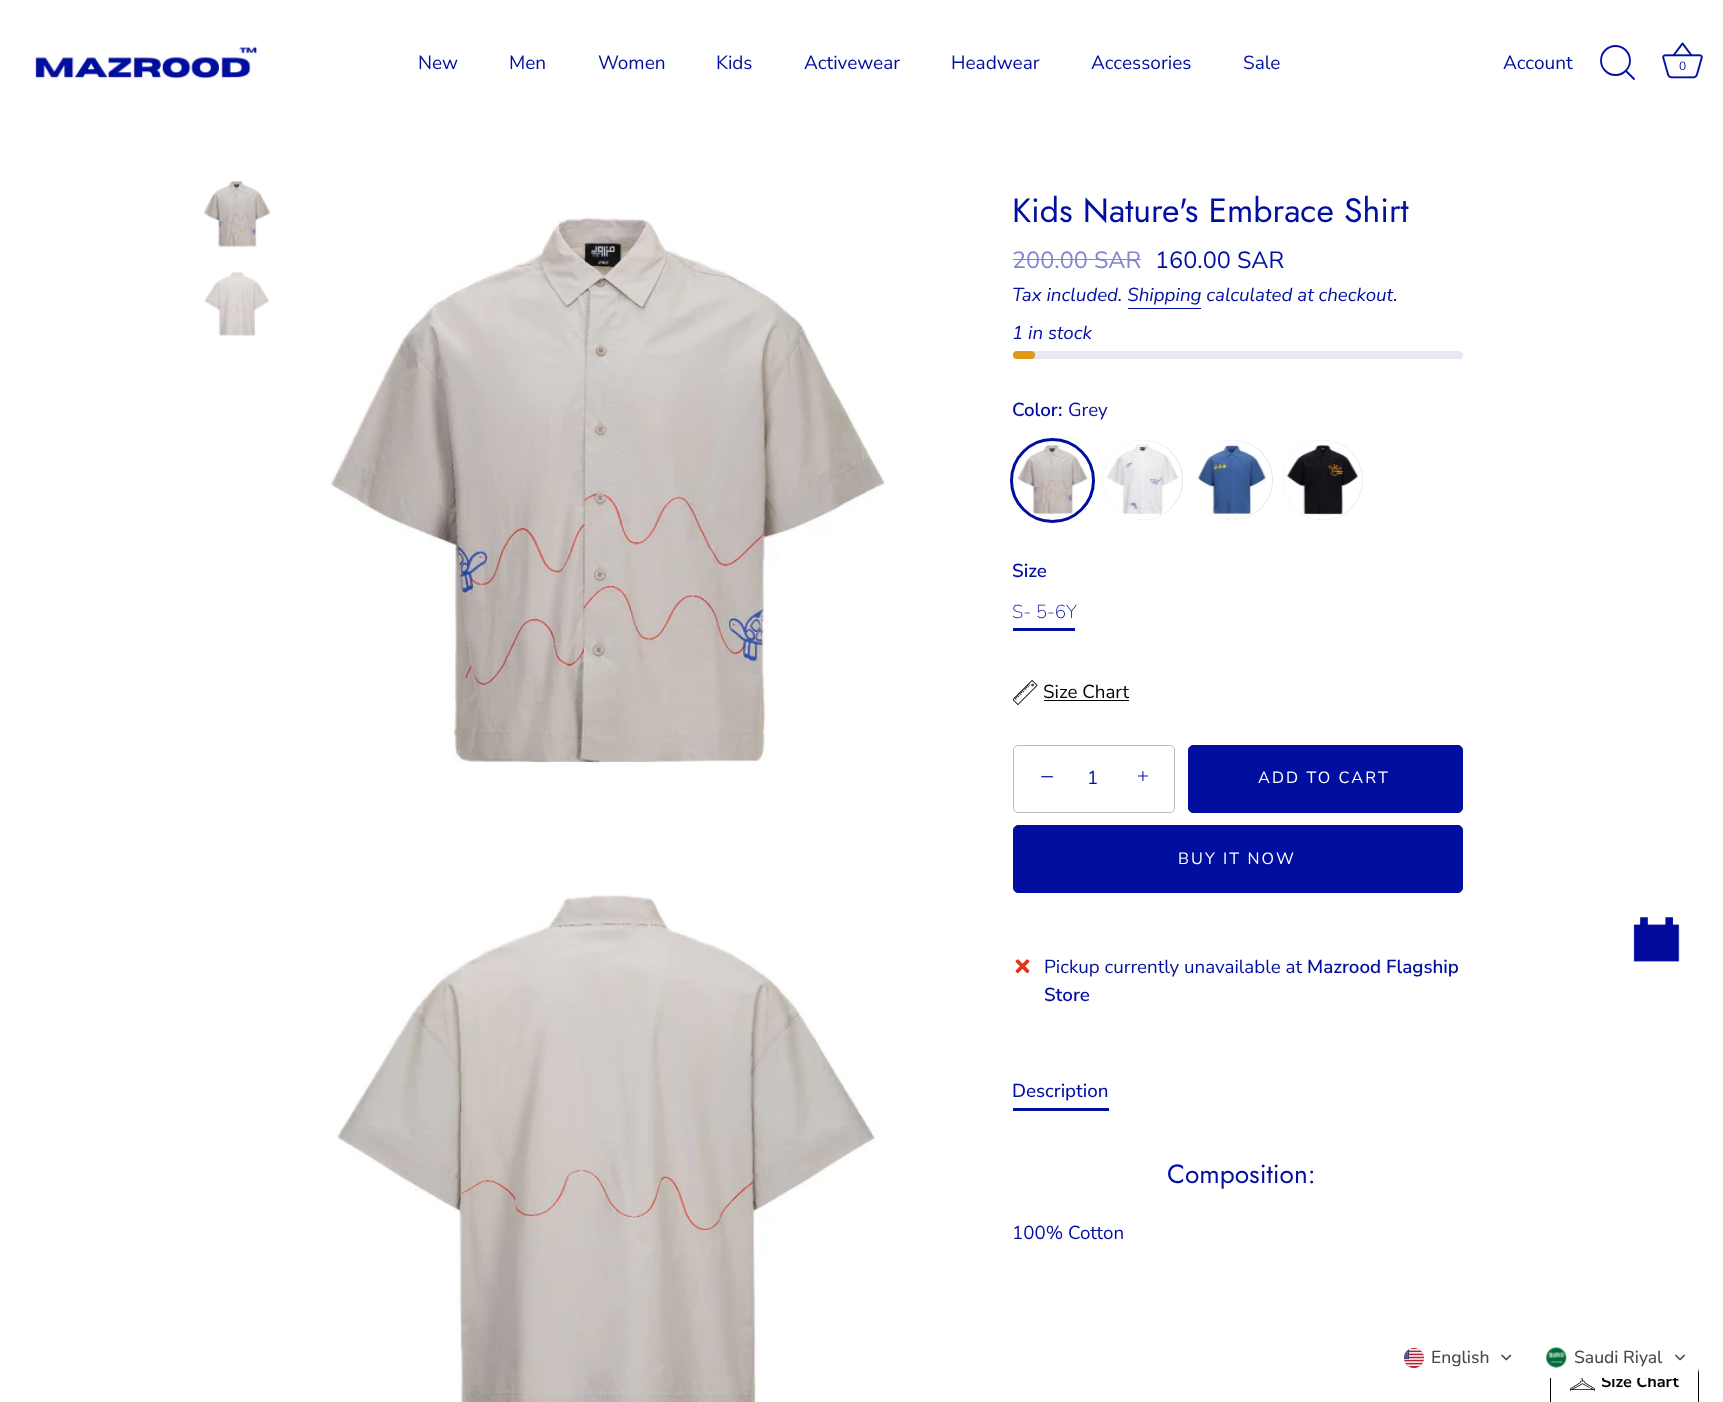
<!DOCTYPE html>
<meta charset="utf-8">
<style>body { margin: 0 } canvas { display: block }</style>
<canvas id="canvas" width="1723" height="1402"></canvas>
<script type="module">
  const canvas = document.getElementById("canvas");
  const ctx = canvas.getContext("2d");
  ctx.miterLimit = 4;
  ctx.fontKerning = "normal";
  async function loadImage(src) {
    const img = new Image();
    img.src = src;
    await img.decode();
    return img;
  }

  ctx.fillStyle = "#ffffff";
  ctx.fillRect(0, 0, 1723, 1402);
  ctx.drawImage(await loadImage("img1.png"), 33, 46, 225, 34);
  ctx.font = "19px Nunito Sans";
  ctx.fillStyle = "#000f9f";
  ctx.fillText("New", 418, 69);
  ctx.fillText("Men", 509, 69);
  ctx.fillText("Women", 598, 69);
  ctx.fillText("Kids", 716, 69);
  ctx.fillText("Activewear", 804, 69);
  ctx.fillText("Headwear", 951, 69);
  ctx.fillText("Accessories", 1091, 69);
  ctx.fillText("Sale", 1243, 69);
  ctx.fillText("Account", 1503, 69);
  ctx.beginPath();
  ctx.arc(1615.5, 60.5, 14.5, 0, Math.PI * 2);
  ctx.strokeStyle = "#000f9f";
  ctx.lineWidth = 1.8;
  ctx.stroke();
  ctx.beginPath();
  ctx.moveTo(1634, 79);
  ctx.lineTo(1626, 71);
  ctx.lineCap = "round";
  ctx.lineJoin = "round";
  ctx.stroke();
  ctx.drawImage(await loadImage("img2.png"), 1662, 42, 41, 37);
  ctx.font = "12px Nunito Sans";
  ctx.fillText("0", 1679, 70);
  ctx.drawImage(await loadImage("img3.png"), 203, 181, 68, 67);
  ctx.drawImage(await loadImage("img4.png"), 204, 272, 66, 65);
  ctx.drawImage(await loadImage("img5.png"), 330, 217, 556, 547);
  ctx.drawImage(await loadImage("img6.png"), 335, 893, 543, 509);
  ctx.font = "33.75px Jost";
  ctx.fillText("Kids Nature's Embrace Shirt", 1012, 222);
  ctx.font = "23.5px Nunito Sans";
  ctx.fillStyle = "#8087cf";
  ctx.fillText("200.00 SAR", 1012, 268);
  ctx.fillRect(1013, 259, 128, 1);
  ctx.fillStyle = "#000f9f";
  ctx.fillText("160.00 SAR", 1155, 268);
  ctx.font = "italic 18.75px Nunito Sans";
  ctx.fillText("Tax included. Shipping calculated at checkout.", 1012, 301);
  ctx.fillRect(1128, 308, 73, 1);
  ctx.fillText("1 in stock", 1012, 339);
  ctx.fillStyle = "#e7e8f3";
  ctx.beginPath();
  ctx.roundRect(1013, 351, 450, 8, 4);
  ctx.fill();
  ctx.fillStyle = "#dd9a1a";
  ctx.beginPath();
  ctx.roundRect(1013, 351, 22, 8, 4);
  ctx.fill();
  ctx.font = "600 18.75px Nunito Sans";
  ctx.fillStyle = "#000f9f";
  ctx.fillText("Color:", 1012, 416);
  ctx.font = "18.75px Nunito Sans";
  ctx.fillText("Grey", 1068, 416);
  ctx.fillStyle = "#d9dbf1";
  ctx.beginPath();
  ctx.arc(1053, 480, 40, 0, Math.PI * 2);
  ctx.fill();
  ctx.drawImage(await loadImage("img7.png"), 1013, 441, 79, 79);
  ctx.beginPath();
  ctx.arc(1052.5, 480.5, 41, 0, Math.PI * 2);
  ctx.lineWidth = 3;
  ctx.stroke();
  ctx.beginPath();
  ctx.arc(1143, 480, 40, 0, Math.PI * 2);
  ctx.fill();
  ctx.drawImage(await loadImage("img8.png"), 1103, 440, 80, 80);
  ctx.beginPath();
  ctx.arc(1233, 480, 40, 0, Math.PI * 2);
  ctx.fill();
  ctx.drawImage(await loadImage("img9.png"), 1193, 440, 80, 80);
  ctx.beginPath();
  ctx.arc(1323, 480, 40, 0, Math.PI * 2);
  ctx.fill();
  ctx.drawImage(await loadImage("img10.png"), 1283, 440, 80, 80);
  ctx.font = "600 18.75px Nunito Sans";
  ctx.fillStyle = "#000f9f";
  ctx.fillText("Size", 1012, 577);
  ctx.font = "200 18.75px Nunito Sans";
  ctx.fillText("S- 5-6Y", 1012, 618);
  ctx.fillRect(1013, 628, 62, 3);
  ctx.drawImage(await loadImage("img11.png"), 1013, 680, 25, 25);
  ctx.font = "18.75px Nunito Sans";
  ctx.fillStyle = "#000000";
  ctx.fillText("Size Chart", 1043, 698);
  ctx.fillRect(1044, 700, 85, 1);
  ctx.beginPath();
  ctx.roundRect(1013.5, 745.5, 161, 67, 4.5);
  ctx.strokeStyle = "#bbbbbb";
  ctx.lineWidth = 1;
  ctx.lineJoin = "miter";
  ctx.stroke();
  ctx.font = "25px Liberation Serif";
  ctx.fillStyle = "#000f9f";
  ctx.fillText("−", 1040, 785);
  ctx.letterSpacing = "1px";
  ctx.font = "18.75px Nunito Sans";
  ctx.fillText("1", 1087, 784);
  ctx.letterSpacing = "0px";
  ctx.font = "21px Liberation Serif";
  ctx.fillText("+", 1137, 783);
  ctx.beginPath();
  ctx.roundRect(1188.5, 745.5, 274, 67, 4.5);
  ctx.fill();
  ctx.strokeStyle = "#000f9f";
  ctx.stroke();
  ctx.letterSpacing = "2.1px";
  ctx.font = "16.25px Nunito Sans";
  ctx.fillStyle = "#ffffff";
  ctx.fillText("ADD TO CART", 1258, 783);
  ctx.fillStyle = "#000f9f";
  ctx.beginPath();
  ctx.roundRect(1013.5, 825.5, 449, 67, 4.5);
  ctx.fill();
  ctx.stroke();
  ctx.fillStyle = "#ffffff";
  ctx.fillText("BUY IT NOW", 1178, 864);
  ctx.drawImage(await loadImage("img12.png"), 1015, 959, 15, 15);
  ctx.letterSpacing = "0px";
  ctx.font = "18.75px Nunito Sans";
  ctx.fillStyle = "#000f9f";
  ctx.fillText("Pickup currently unavailable at", 1044, 973);
  ctx.font = "600 18.75px Nunito Sans";
  ctx.fillText("Mazrood Flagship", 1307, 973);
  ctx.fillText("Store", 1044, 1001);
  ctx.font = "500 18.75px Nunito Sans";
  ctx.fillText("Description", 1012, 1097);
  ctx.fillRect(1013, 1108, 96, 3);
  ctx.font = "26.25px Jost";
  ctx.fillText("Composition:", 1167, 1183);
  ctx.font = "18.75px Nunito Sans";
  ctx.fillText("100% Cotton", 1012, 1239);
  ctx.drawImage(await loadImage("img13.png"), 1633, 916, 47, 46);
  ctx.drawImage(await loadImage("img14.png"), 1404, 1348, 20, 20);
  ctx.font = "500 17.5px Nunito Sans";
  ctx.fillStyle = "#4a4a4a";
  ctx.fillText("English", 1431, 1363);
  ctx.drawImage(await loadImage("img15.png"), 1501, 1354, 11, 7);
  ctx.strokeStyle = "#000000";
  ctx.strokeRect(1550.5, 1360.5, 148, 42);
  ctx.font = "bold 16.25px Nunito Sans";
  ctx.fillStyle = "#000000";
  ctx.fillText("Size Chart", 1601, 1387);
  ctx.fillStyle = "#ffffff";
  ctx.beginPath();
  ctx.roundRect(1535, 1338, 164, 40, 10);
  ctx.fill();
  ctx.drawImage(await loadImage("img16.png"), 1546, 1347, 21, 21);
  ctx.font = "500 17.5px Nunito Sans";
  ctx.fillStyle = "#4a4a4a";
  ctx.fillText("Saudi Riyal", 1574, 1363);
  ctx.drawImage(await loadImage("img17.png"), 1675, 1354, 10, 7);
  ctx.drawImage(await loadImage("img18.png"), 1570, 1378, 25, 13);
</script>
